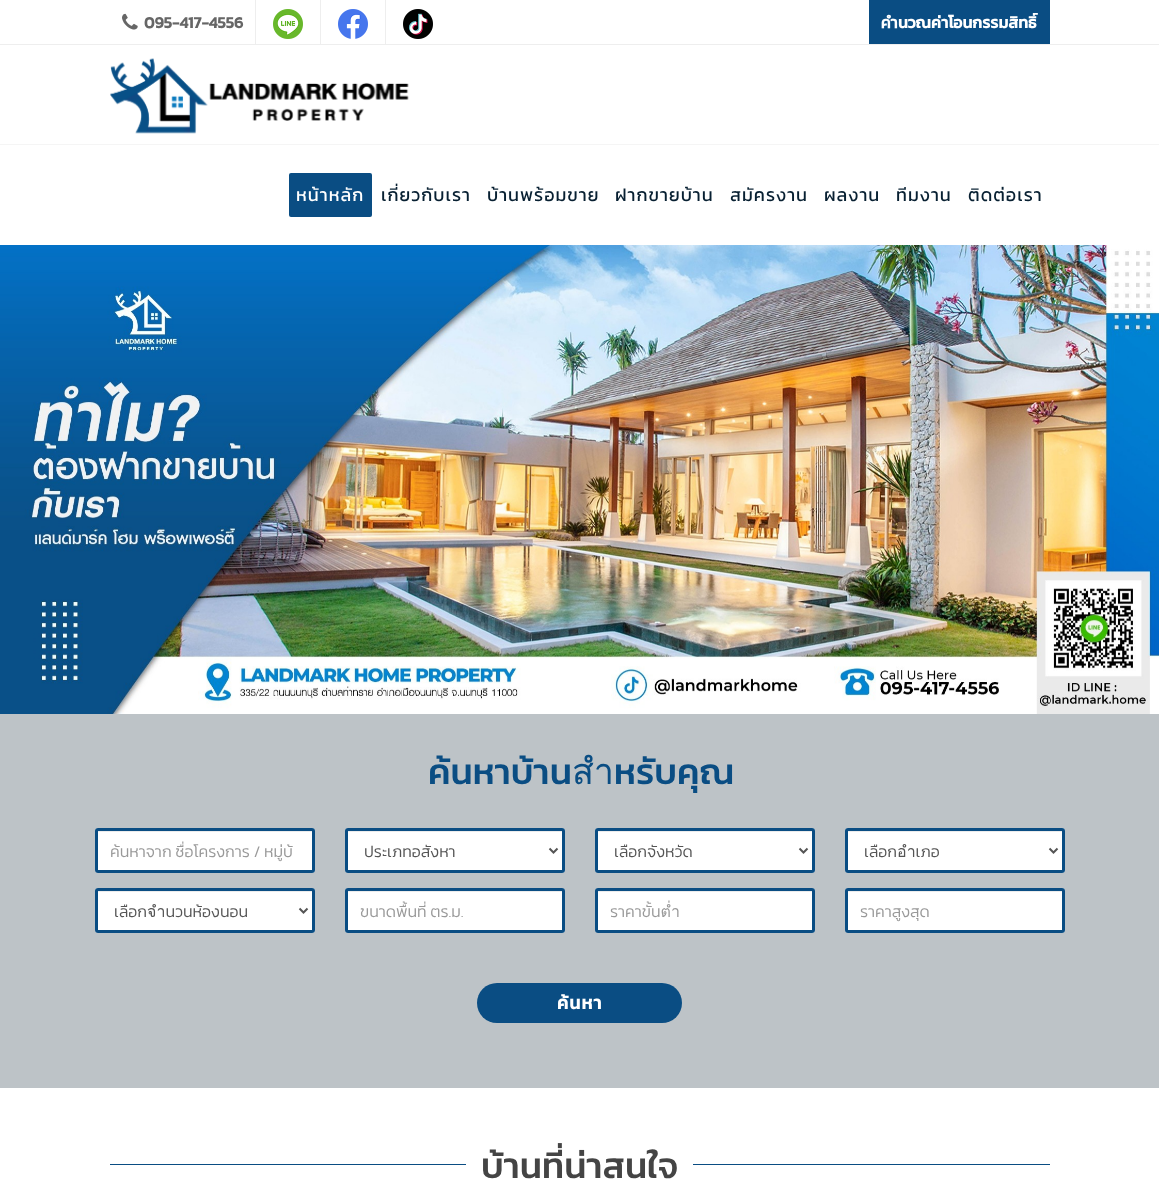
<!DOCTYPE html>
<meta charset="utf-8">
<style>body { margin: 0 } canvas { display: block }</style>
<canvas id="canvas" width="1159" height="1184"></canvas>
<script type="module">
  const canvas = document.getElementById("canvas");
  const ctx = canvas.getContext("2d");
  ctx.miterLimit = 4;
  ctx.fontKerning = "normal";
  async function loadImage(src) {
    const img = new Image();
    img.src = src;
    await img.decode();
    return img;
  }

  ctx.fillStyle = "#ffffff";
  ctx.fillRect(0, 0, 1159, 1184);
  ctx.fillStyle = "#eeeeee";
  ctx.fillRect(0, 44, 1159, 1);
  ctx.drawImage(await loadImage("img1.png"), 122, 13, 16, 17);
  ctx.font = "bold 16px Kanit";
  ctx.fillStyle = "#666666";
  ctx.fillText("095-417-4556", 144, 28);
  ctx.fillStyle = "#eeeeee";
  ctx.fillRect(255, 0, 1, 44);
  ctx.drawImage(await loadImage("img2.png"), 273, 9, 30, 30);
  ctx.fillRect(320, 0, 1, 44);
  ctx.drawImage(await loadImage("img3.png"), 338, 9, 30, 30);
  ctx.fillRect(385, 0, 1, 44);
  ctx.drawImage(await loadImage("img4.png"), 403, 9, 30, 30);
  ctx.fillStyle = "#0a4d83";
  ctx.fillRect(869, 0, 181, 44);
  ctx.fillStyle = "#ffffff";
  ctx.fillText("คำนวณค่าโอนกรรมสิทธิ์", 881, 28);
  ctx.fillStyle = "#f5f5f5";
  ctx.fillRect(0, 144, 1159, 1);
  ctx.drawImage(await loadImage("img5.png"), 110, 58, 299, 76);
  ctx.fillStyle = "#0a4d83";
  ctx.beginPath();
  ctx.roundRect(289, 173, 83, 44, 2);
  ctx.fill();
  ctx.letterSpacing = "1px";
  ctx.font = "18px Kanit";
  ctx.fillStyle = "#ffffff";
  ctx.fillText("หน้าหลัก", 296, 201);
  ctx.fillStyle = "#082032";
  ctx.fillText("เกี่ยวกับเรา", 381, 201);
  ctx.fillText("บ้านพร้อมขาย", 487, 201);
  ctx.fillText("ฝากขายบ้าน", 615, 201);
  ctx.fillText("สมัครงาน", 730, 201);
  ctx.fillText("ผลงาน", 824, 201);
  ctx.fillText("ทีมงาน", 896, 201);
  ctx.fillText("ติดต่อเรา", 968, 201);
  ctx.drawImage(await loadImage("img6.png"), 0, 245, 1159, 469);
  ctx.fillStyle = "#bdc3c7";
  ctx.fillRect(0, 714, 1159, 374);
  ctx.letterSpacing = "0px";
  ctx.font = "500 36px Kanit";
  ctx.fillStyle = "#0a4d83";
  ctx.fillText("ค้นหาบ้านสำหรับคุณ", 428, 784);
  ctx.fillStyle = "#ffffff";
  ctx.beginPath();
  ctx.roundRect(95, 828, 220, 45, 3);
  ctx.fill();
  ctx.fillStyle = "#ececec";
  ctx.fillRect(98, 831, 214, 1);
  ctx.beginPath();
  ctx.roundRect(96.5, 829.5, 217, 42, 1.5);
  ctx.strokeStyle = "#0a4d83";
  ctx.lineWidth = 3;
  ctx.stroke();
  ctx.save();
  ctx.beginPath();
  ctx.rect(110, 839, 186, 24);
  ctx.clip();
  ctx.font = "300 16px Kanit";
  ctx.fillStyle = "#999999";
  ctx.fillText("ค้นหาจาก ชื่อโครงการ / หมู่บ้", 110, 857);
  ctx.restore();
  ctx.fillStyle = "#ffffff";
  ctx.beginPath();
  ctx.roundRect(345, 828, 220, 45, 3);
  ctx.fill();
  ctx.fillStyle = "#ececec";
  ctx.fillRect(348, 831, 214, 1);
  ctx.beginPath();
  ctx.roundRect(346.5, 829.5, 217, 42, 1.5);
  ctx.stroke();
  ctx.beginPath();
  ctx.moveTo(549.5, 848.5);
  ctx.lineTo(553.5, 852.5);
  ctx.lineTo(557.5, 848.5);
  ctx.strokeStyle = "#555555";
  ctx.lineWidth = 2;
  ctx.stroke();
  ctx.font = "300 16px Kanit";
  ctx.fillStyle = "#555555";
  ctx.fillText("ประเภทอสังหา", 364, 857);
  ctx.fillStyle = "#ffffff";
  ctx.beginPath();
  ctx.roundRect(595, 828, 220, 45, 3);
  ctx.fill();
  ctx.fillStyle = "#ececec";
  ctx.fillRect(598, 831, 214, 1);
  ctx.beginPath();
  ctx.roundRect(596.5, 829.5, 217, 42, 1.5);
  ctx.strokeStyle = "#0a4d83";
  ctx.lineWidth = 3;
  ctx.stroke();
  ctx.beginPath();
  ctx.moveTo(799.5, 848.5);
  ctx.lineTo(803.5, 852.5);
  ctx.lineTo(807.5, 848.5);
  ctx.strokeStyle = "#555555";
  ctx.lineWidth = 2;
  ctx.stroke();
  ctx.save();
  ctx.beginPath();
  ctx.rect(614, 838, 170, 26);
  ctx.clip();
  ctx.fillStyle = "#555555";
  ctx.fillText("เลือกจังหวัด", 614, 857);
  ctx.restore();
  ctx.fillStyle = "#ffffff";
  ctx.beginPath();
  ctx.roundRect(845, 828, 220, 45, 3);
  ctx.fill();
  ctx.fillStyle = "#ececec";
  ctx.fillRect(848, 831, 214, 1);
  ctx.beginPath();
  ctx.roundRect(846.5, 829.5, 217, 42, 1.5);
  ctx.strokeStyle = "#0a4d83";
  ctx.lineWidth = 3;
  ctx.stroke();
  ctx.beginPath();
  ctx.moveTo(1049.5, 848.5);
  ctx.lineTo(1053.5, 852.5);
  ctx.lineTo(1057.5, 848.5);
  ctx.strokeStyle = "#555555";
  ctx.lineWidth = 2;
  ctx.stroke();
  ctx.save();
  ctx.beginPath();
  ctx.rect(864, 838, 170, 26);
  ctx.clip();
  ctx.fillStyle = "#555555";
  ctx.fillText("เลือกอำเภอ", 864, 857);
  ctx.restore();
  ctx.fillStyle = "#ffffff";
  ctx.beginPath();
  ctx.roundRect(95, 888, 220, 45, 3);
  ctx.fill();
  ctx.fillStyle = "#ececec";
  ctx.fillRect(98, 891, 214, 1);
  ctx.beginPath();
  ctx.roundRect(96.5, 889.5, 217, 42, 1.5);
  ctx.strokeStyle = "#0a4d83";
  ctx.lineWidth = 3;
  ctx.stroke();
  ctx.beginPath();
  ctx.moveTo(299.5, 908.5);
  ctx.lineTo(303.5, 912.5);
  ctx.lineTo(307.5, 908.5);
  ctx.strokeStyle = "#555555";
  ctx.lineWidth = 2;
  ctx.stroke();
  ctx.save();
  ctx.beginPath();
  ctx.rect(114, 898, 170, 26);
  ctx.clip();
  ctx.fillStyle = "#555555";
  ctx.fillText("เลือกจำนวนห้องนอน", 114, 917);
  ctx.restore();
  ctx.fillStyle = "#ffffff";
  ctx.beginPath();
  ctx.roundRect(345, 888, 220, 45, 3);
  ctx.fill();
  ctx.fillStyle = "#ececec";
  ctx.fillRect(348, 891, 214, 1);
  ctx.beginPath();
  ctx.roundRect(346.5, 889.5, 217, 42, 1.5);
  ctx.strokeStyle = "#0a4d83";
  ctx.lineWidth = 3;
  ctx.stroke();
  ctx.fillStyle = "#999999";
  ctx.fillText("ขนาดพื้นที่ ตร.ม.", 360, 917);
  ctx.fillStyle = "#ffffff";
  ctx.beginPath();
  ctx.roundRect(595, 888, 220, 45, 3);
  ctx.fill();
  ctx.fillStyle = "#ececec";
  ctx.fillRect(598, 891, 214, 1);
  ctx.beginPath();
  ctx.roundRect(596.5, 889.5, 217, 42, 1.5);
  ctx.stroke();
  ctx.fillStyle = "#999999";
  ctx.fillText("ราคาขั้นต่ำ", 610, 917);
  ctx.fillStyle = "#ffffff";
  ctx.beginPath();
  ctx.roundRect(845, 888, 220, 45, 3);
  ctx.fill();
  ctx.fillStyle = "#ececec";
  ctx.fillRect(848, 891, 214, 1);
  ctx.beginPath();
  ctx.roundRect(846.5, 889.5, 217, 42, 1.5);
  ctx.stroke();
  ctx.fillStyle = "#999999";
  ctx.fillText("ราคาสูงสุด", 860, 917);
  ctx.fillStyle = "#0a4d83";
  ctx.beginPath();
  ctx.roundRect(477, 983, 205, 40, 20);
  ctx.fill();
  ctx.letterSpacing = "1px";
  ctx.font = "bold 18px Kanit";
  ctx.fillStyle = "#ffffff";
  ctx.fillText("ค้นหา", 557, 1009);
  ctx.fillStyle = "#0a4d83";
  ctx.fillRect(110, 1164, 940, 1);
  ctx.fillStyle = "#ffffff";
  ctx.fillRect(466, 1164, 227, 1);
  ctx.letterSpacing = "0px";
  ctx.font = "500 36px Kanit";
  ctx.fillStyle = "#444444";
  ctx.fillText("บ้านที่น่าสนใจ", 481, 1178);
</script>
